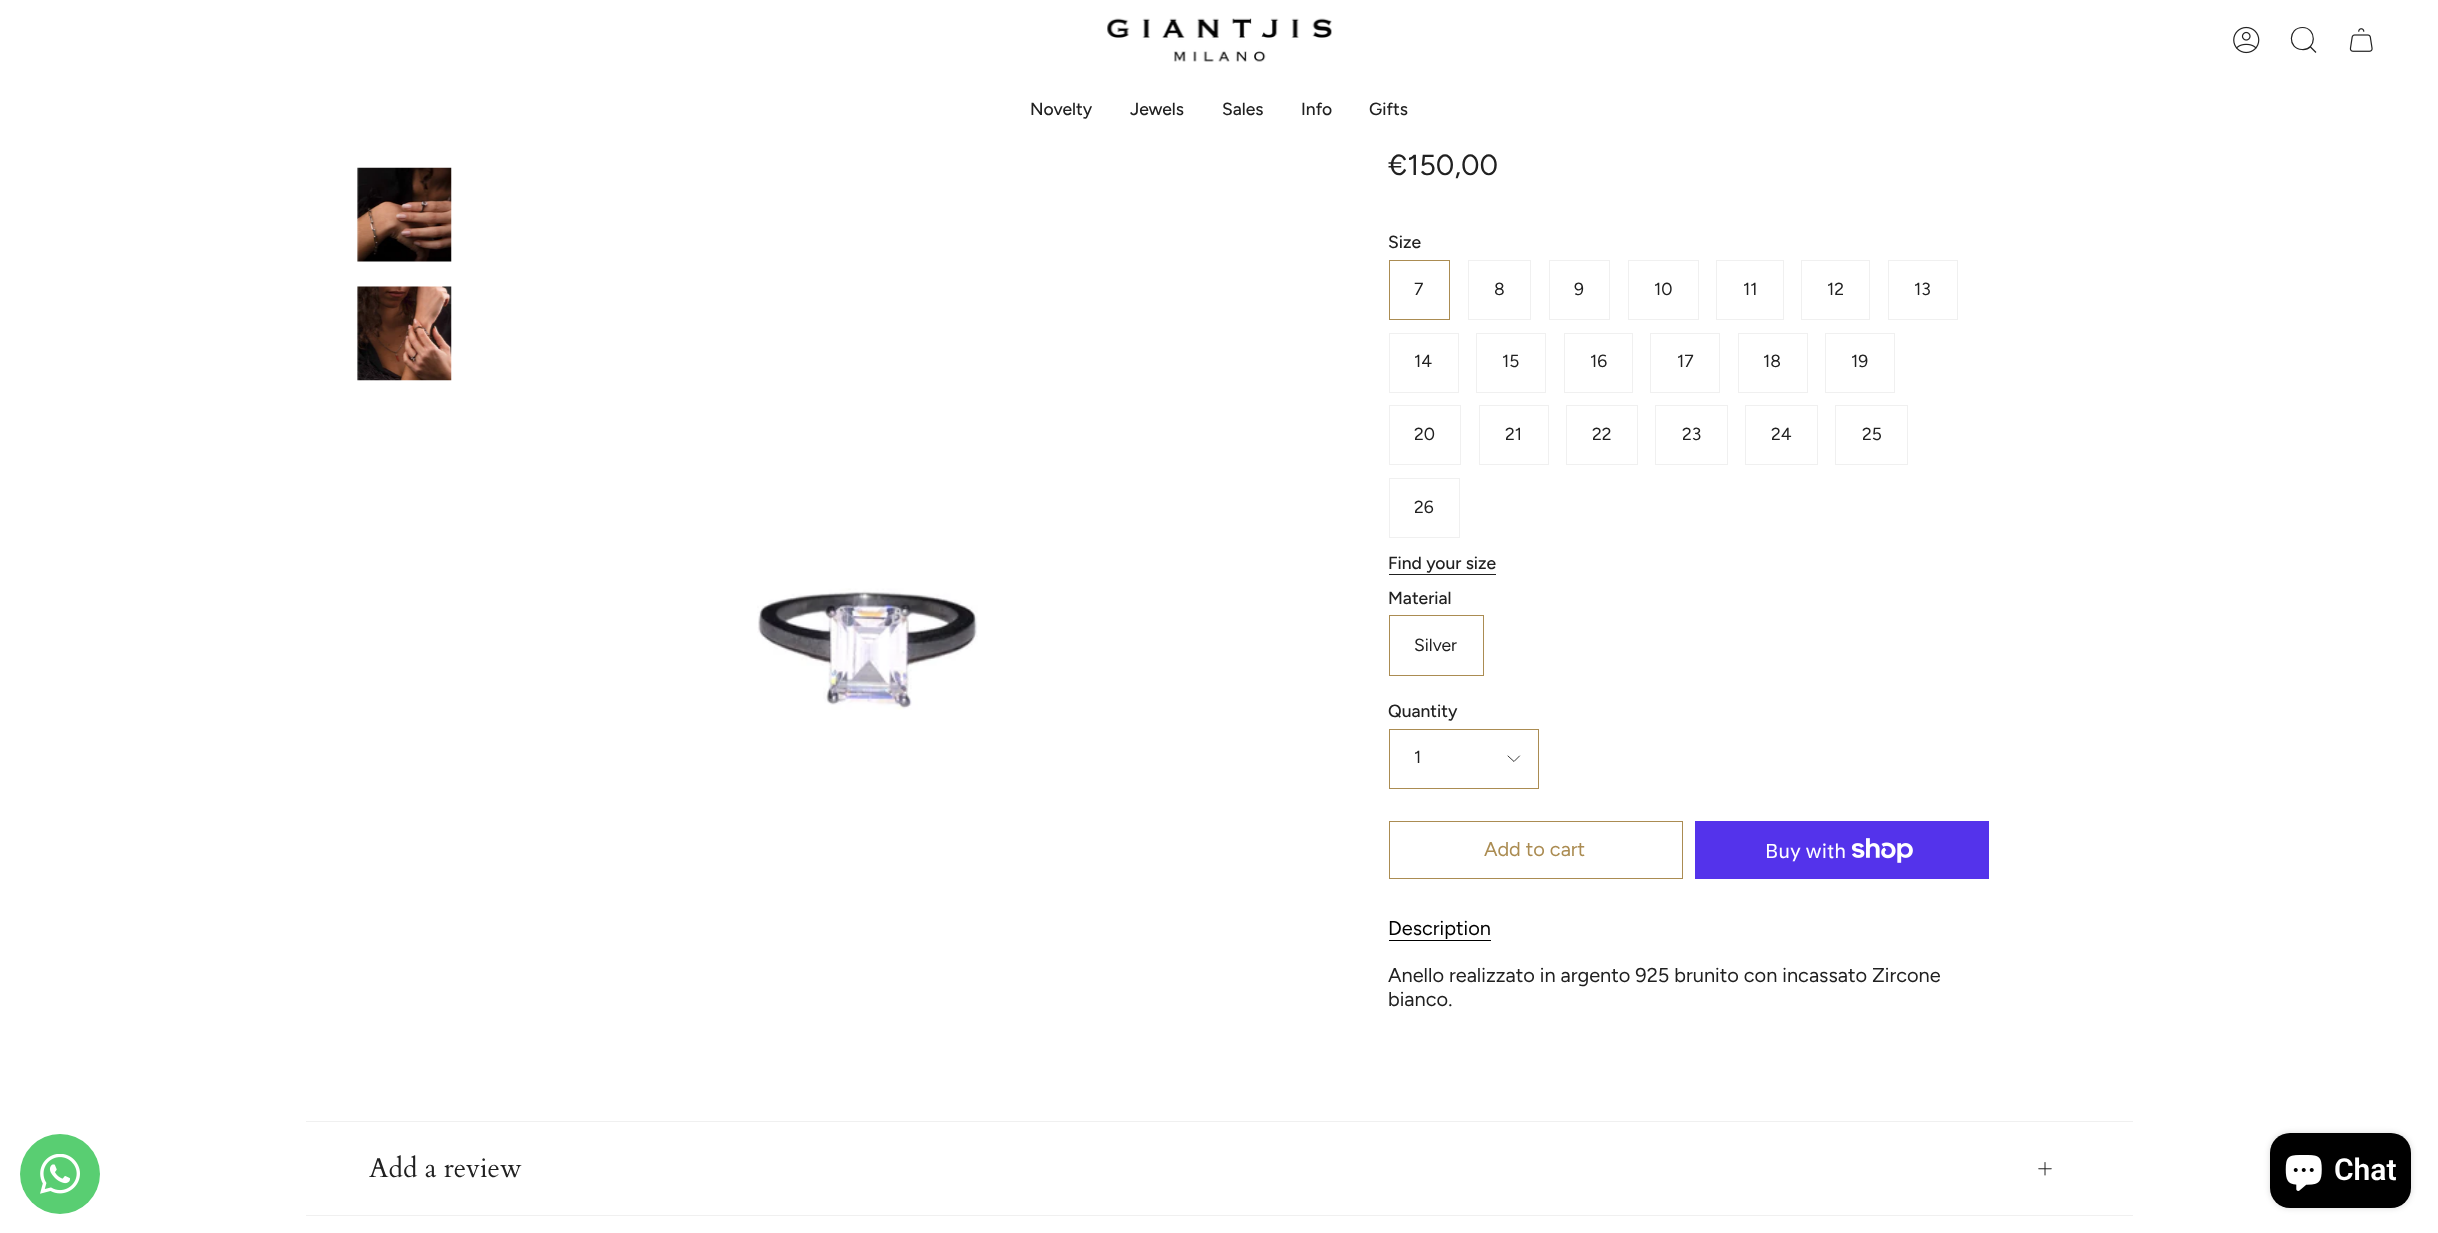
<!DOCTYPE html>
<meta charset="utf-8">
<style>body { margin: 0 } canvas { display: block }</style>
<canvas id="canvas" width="2438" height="1233"></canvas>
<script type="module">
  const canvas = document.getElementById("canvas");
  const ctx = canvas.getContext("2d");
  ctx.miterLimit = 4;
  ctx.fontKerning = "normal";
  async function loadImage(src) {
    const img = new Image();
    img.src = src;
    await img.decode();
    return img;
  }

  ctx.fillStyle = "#ffffff";
  ctx.fillRect(0, 0, 2438, 1233);
  ctx.fillStyle = "#59ce72";
  ctx.beginPath();
  ctx.arc(60, 1174, 40, 0, Math.PI * 2);
  ctx.fill();
  ctx.drawImage(await loadImage("img1.png"), 40, 1154, 40, 40);
  ctx.drawImage(await loadImage("img2.png"), 1107, 18, 225, 44);
  ctx.drawImage(await loadImage("img3.png"), 2233, 26, 27, 28);
  ctx.beginPath();
  ctx.moveTo(2302.5, 27.5);
  ctx.bezierCurveTo(2317, 27.5, 2317, 50.5, 2302, 49.5);
  ctx.bezierCurveTo(2287.5, 49, 2288, 27.5, 2302.5, 27.5);
  ctx.closePath();
  ctx.moveTo(2310, 46.5);
  ctx.lineTo(2316, 52.5);
  ctx.strokeStyle = "#212121";
  ctx.lineWidth = 1.2;
  ctx.stroke();
  ctx.drawImage(await loadImage("img4.png"), 2349, 28, 24, 24);
  ctx.font = "500 17.5px Figtree";
  ctx.fillStyle = "#212121";
  ctx.fillText("Novelty", 1030, 115);
  ctx.fillText("Jewels", 1130, 115);
  ctx.fillText("Sales", 1222, 115);
  ctx.fillText("Info", 1301, 115);
  ctx.fillText("Gifts", 1369, 115);
  ctx.drawImage(await loadImage("img5.png"), 357, 167, 95, 95);
  ctx.drawImage(await loadImage("img6.png"), 357, 286, 95, 95);
  ctx.drawImage(await loadImage("img7.png"), 757, 588, 221, 122);
  ctx.font = "29px Figtree";
  ctx.fillText("€150,00", 1388, 175);
  ctx.font = "500 17.5px Figtree";
  ctx.fillText("Size", 1388, 248);
  ctx.strokeStyle = "#ab8c52";
  ctx.lineWidth = 1;
  ctx.strokeRect(1389.5, 260.5, 60, 59);
  ctx.font = "17.5px Figtree";
  ctx.fillText("7", 1414, 295);
  ctx.strokeStyle = "#f0f0f0";
  ctx.strokeRect(1468.5, 260.5, 62, 59);
  ctx.fillText("8", 1494, 295);
  ctx.strokeRect(1549.5, 260.5, 60, 59);
  ctx.fillText("9", 1574, 295);
  ctx.strokeRect(1628.5, 260.5, 70, 59);
  ctx.fillText("10", 1654, 295);
  ctx.strokeRect(1716.5, 260.5, 67, 59);
  ctx.fillText("11", 1743, 295);
  ctx.strokeRect(1801.5, 260.5, 68, 59);
  ctx.fillText("12", 1827, 295);
  ctx.strokeRect(1888.5, 260.5, 69, 59);
  ctx.fillText("13", 1914, 295);
  ctx.strokeRect(1389.5, 333.5, 69, 59);
  ctx.fillText("14", 1414, 367);
  ctx.strokeRect(1476.5, 333.5, 69, 59);
  ctx.fillText("15", 1502, 367);
  ctx.strokeRect(1564.5, 333.5, 68, 59);
  ctx.fillText("16", 1590, 367);
  ctx.strokeRect(1650.5, 333.5, 69, 59);
  ctx.fillText("17", 1677, 367);
  ctx.strokeRect(1738.5, 333.5, 69, 59);
  ctx.fillText("18", 1763, 367);
  ctx.strokeRect(1825.5, 333.5, 69, 59);
  ctx.fillText("19", 1851, 367);
  ctx.strokeRect(1389.5, 405.5, 71, 59);
  ctx.fillText("20", 1414, 440);
  ctx.strokeRect(1479.5, 405.5, 69, 59);
  ctx.fillText("21", 1505, 440);
  ctx.strokeRect(1566.5, 405.5, 71, 59);
  ctx.fillText("22", 1592, 440);
  ctx.strokeRect(1655.5, 405.5, 72, 59);
  ctx.fillText("23", 1682, 440);
  ctx.strokeRect(1745.5, 405.5, 72, 59);
  ctx.fillText("24", 1771, 440);
  ctx.strokeRect(1835.5, 405.5, 72, 59);
  ctx.fillText("25", 1862, 440);
  ctx.strokeRect(1389.5, 478.5, 70, 59);
  ctx.fillText("26", 1414, 513);
  ctx.fillRect(1389, 574, 107, 1);
  ctx.font = "500 17.5px Figtree";
  ctx.fillText("Find your size", 1388, 569);
  ctx.fillText("Material", 1388, 604);
  ctx.strokeStyle = "#ab8c52";
  ctx.strokeRect(1389.5, 615.5, 94, 60);
  ctx.font = "17.5px Figtree";
  ctx.fillText("Silver", 1414, 651);
  ctx.font = "500 17.5px Figtree";
  ctx.fillText("Quantity", 1388, 717);
  ctx.strokeRect(1389.5, 729.5, 149, 59);
  ctx.font = "17.5px Figtree";
  ctx.fillText("1", 1414, 763);
  ctx.beginPath();
  ctx.moveTo(1508, 756);
  ctx.lineTo(1514, 761.5);
  ctx.lineTo(1519.5, 756);
  ctx.strokeStyle = "#212121";
  ctx.lineWidth = 0.9;
  ctx.lineCap = "round";
  ctx.lineJoin = "round";
  ctx.stroke();
  ctx.strokeStyle = "#ab8c52";
  ctx.lineWidth = 1;
  ctx.lineJoin = "miter";
  ctx.strokeRect(1389.5, 821.5, 293, 57);
  ctx.font = "20px Figtree";
  ctx.fillStyle = "#ab8c52";
  ctx.fillText("Add to cart", 1484, 856);
  ctx.fillStyle = "#5433eb";
  ctx.fillRect(1695, 821, 294, 58);
  ctx.font = "20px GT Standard";
  ctx.fillStyle = "#ffffff";
  ctx.fillText("Buy with", 1765, 858);
  ctx.drawImage(await loadImage("img8.png"), 1851, 838, 62, 25);
  ctx.fillStyle = "#000000";
  ctx.fillRect(1389, 940, 102, 1);
  ctx.font = "20px Figtree";
  ctx.fillText("Description", 1388, 935);
  ctx.fillStyle = "#212121";
  ctx.fillText("Anello realizzato in argento 925 brunito con incassato Zircone", 1388, 982);
  ctx.fillText("bianco.", 1388, 1006);
  ctx.fillStyle = "#f0f0f0";
  ctx.fillRect(306, 1121, 1827, 1);
  ctx.fillRect(306, 1215, 1827, 1);
  ctx.font = "27.25px Cardo";
  ctx.fillStyle = "#212121";
  ctx.fillText("Add a review", 369, 1177);
  ctx.drawImage(await loadImage("img9.png"), 2038, 1162, 14, 14);
  ctx.fillStyle = "rgba(0, 0, 0, 0.15)";
  ctx.filter = "blur(3px)";
  ctx.beginPath();
  ctx.roundRect(2270, 1133, 141, 75, 20);
  ctx.fill();
  ctx.filter = "none";
  ctx.fillStyle = "#000000";
  ctx.beginPath();
  ctx.roundRect(2270, 1133, 141, 75, 20);
  ctx.fill();
  ctx.drawImage(await loadImage("img10.png"), 2285, 1155, 37, 36);
  ctx.font = "600 30px Roboto";
  ctx.fillStyle = "#ffffff";
  ctx.fillText("Chat", 2334, 1180);
</script>
